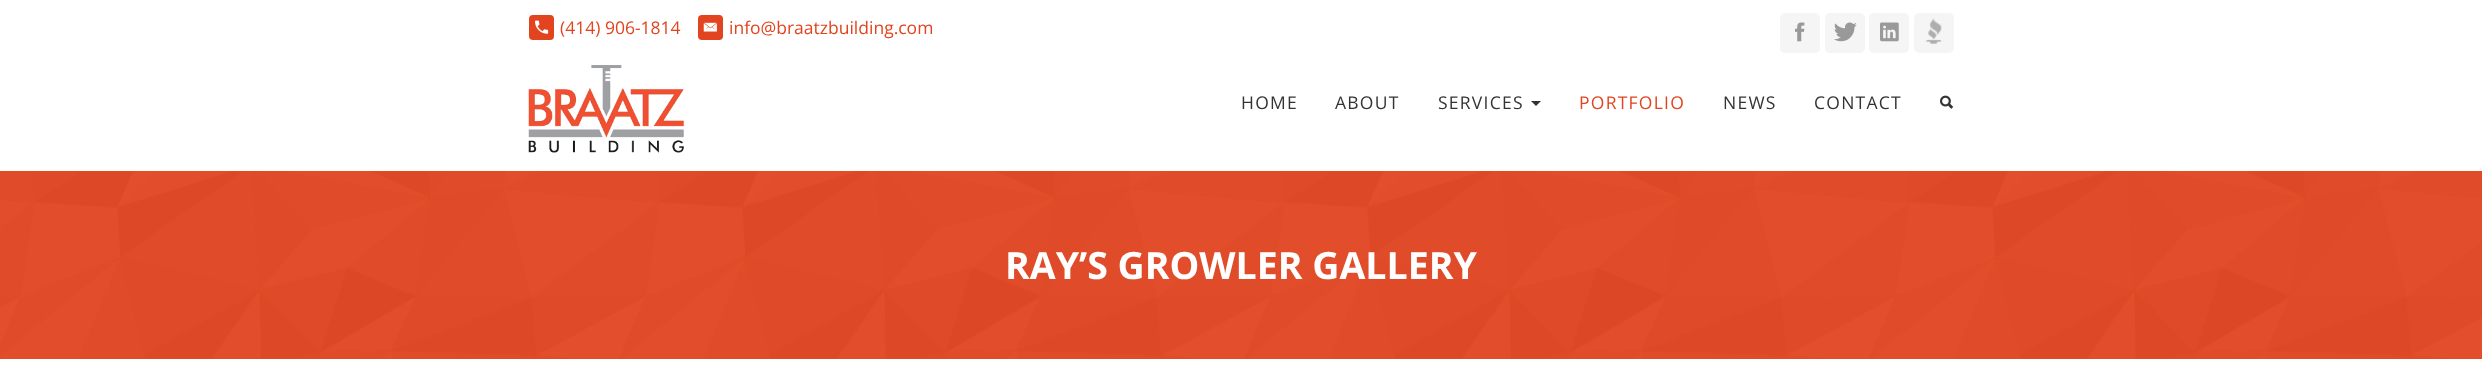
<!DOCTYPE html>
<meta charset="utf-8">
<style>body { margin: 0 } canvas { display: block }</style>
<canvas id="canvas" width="2482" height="392"></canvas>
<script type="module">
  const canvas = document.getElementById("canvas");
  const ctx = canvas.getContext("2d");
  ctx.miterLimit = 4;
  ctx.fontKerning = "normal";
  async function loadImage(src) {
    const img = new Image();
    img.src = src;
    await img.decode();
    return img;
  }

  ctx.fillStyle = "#ffffff";
  ctx.fillRect(0, 0, 2482, 392);
  ctx.fillStyle = "#e2441f";
  ctx.beginPath();
  ctx.roundRect(529, 15, 25, 25, 4);
  ctx.fill();
  ctx.drawImage(await loadImage("img1.png"), 535, 20, 14, 14);
  ctx.font = "17.5px Open Sans";
  ctx.fillText("(414) 906-1814", 560, 34);
  ctx.beginPath();
  ctx.roundRect(698, 15, 25, 25, 4);
  ctx.fill();
  ctx.drawImage(await loadImage("img2.png"), 703, 22, 14, 10);
  ctx.fillText("info@braatzbuilding.com", 729, 34);
  ctx.fillStyle = "#f5f5f5";
  ctx.beginPath();
  ctx.roundRect(1780, 13, 40, 40, 5);
  ctx.fill();
  ctx.drawImage(await loadImage("img3.png"), 1795, 22, 10, 20);
  ctx.beginPath();
  ctx.roundRect(1825, 13, 40, 40, 5);
  ctx.fill();
  ctx.drawImage(await loadImage("img4.png"), 1834, 22, 23, 20);
  ctx.beginPath();
  ctx.roundRect(1869, 13, 40, 40, 5);
  ctx.fill();
  ctx.drawImage(await loadImage("img5.png"), 1880, 22, 19, 20);
  ctx.beginPath();
  ctx.roundRect(1914, 13, 40, 40, 5);
  ctx.fill();
  ctx.drawImage(await loadImage("img6.png"), 1926, 18, 16, 26);
  ctx.drawImage(await loadImage("img7.png"), 528, 65, 156, 88);
  ctx.letterSpacing = "1.25px";
  ctx.fillStyle = "#333333";
  ctx.fillText("HOME", 1241, 109);
  ctx.fillText("ABOUT", 1335, 109);
  ctx.fillText("SERVICES", 1438, 109);
  ctx.beginPath();
  ctx.moveTo(1531, 101);
  ctx.lineTo(1541, 101);
  ctx.lineTo(1536, 106);
  ctx.closePath();
  ctx.fill();
  ctx.fillStyle = "#e2441f";
  ctx.fillText("PORTFOLIO", 1579, 109);
  ctx.fillStyle = "#333333";
  ctx.fillText("NEWS", 1723, 109);
  ctx.fillText("CONTACT", 1814, 109);
  ctx.drawImage(await loadImage("img8.png"), 1940, 95, 14, 14);
  ctx.fillStyle = "#e2441f";
  ctx.fillRect(0, 171, 2482, 188);
  ctx.drawImage(await loadImage("img9.png"), 0, 171, 2482, 188);
  ctx.letterSpacing = "0px";
  ctx.font = "bold 37.5px Open Sans";
  ctx.fillStyle = "#ffffff";
  ctx.fillText("RAY’S GROWLER GALLERY", 1005, 279);
</script>
